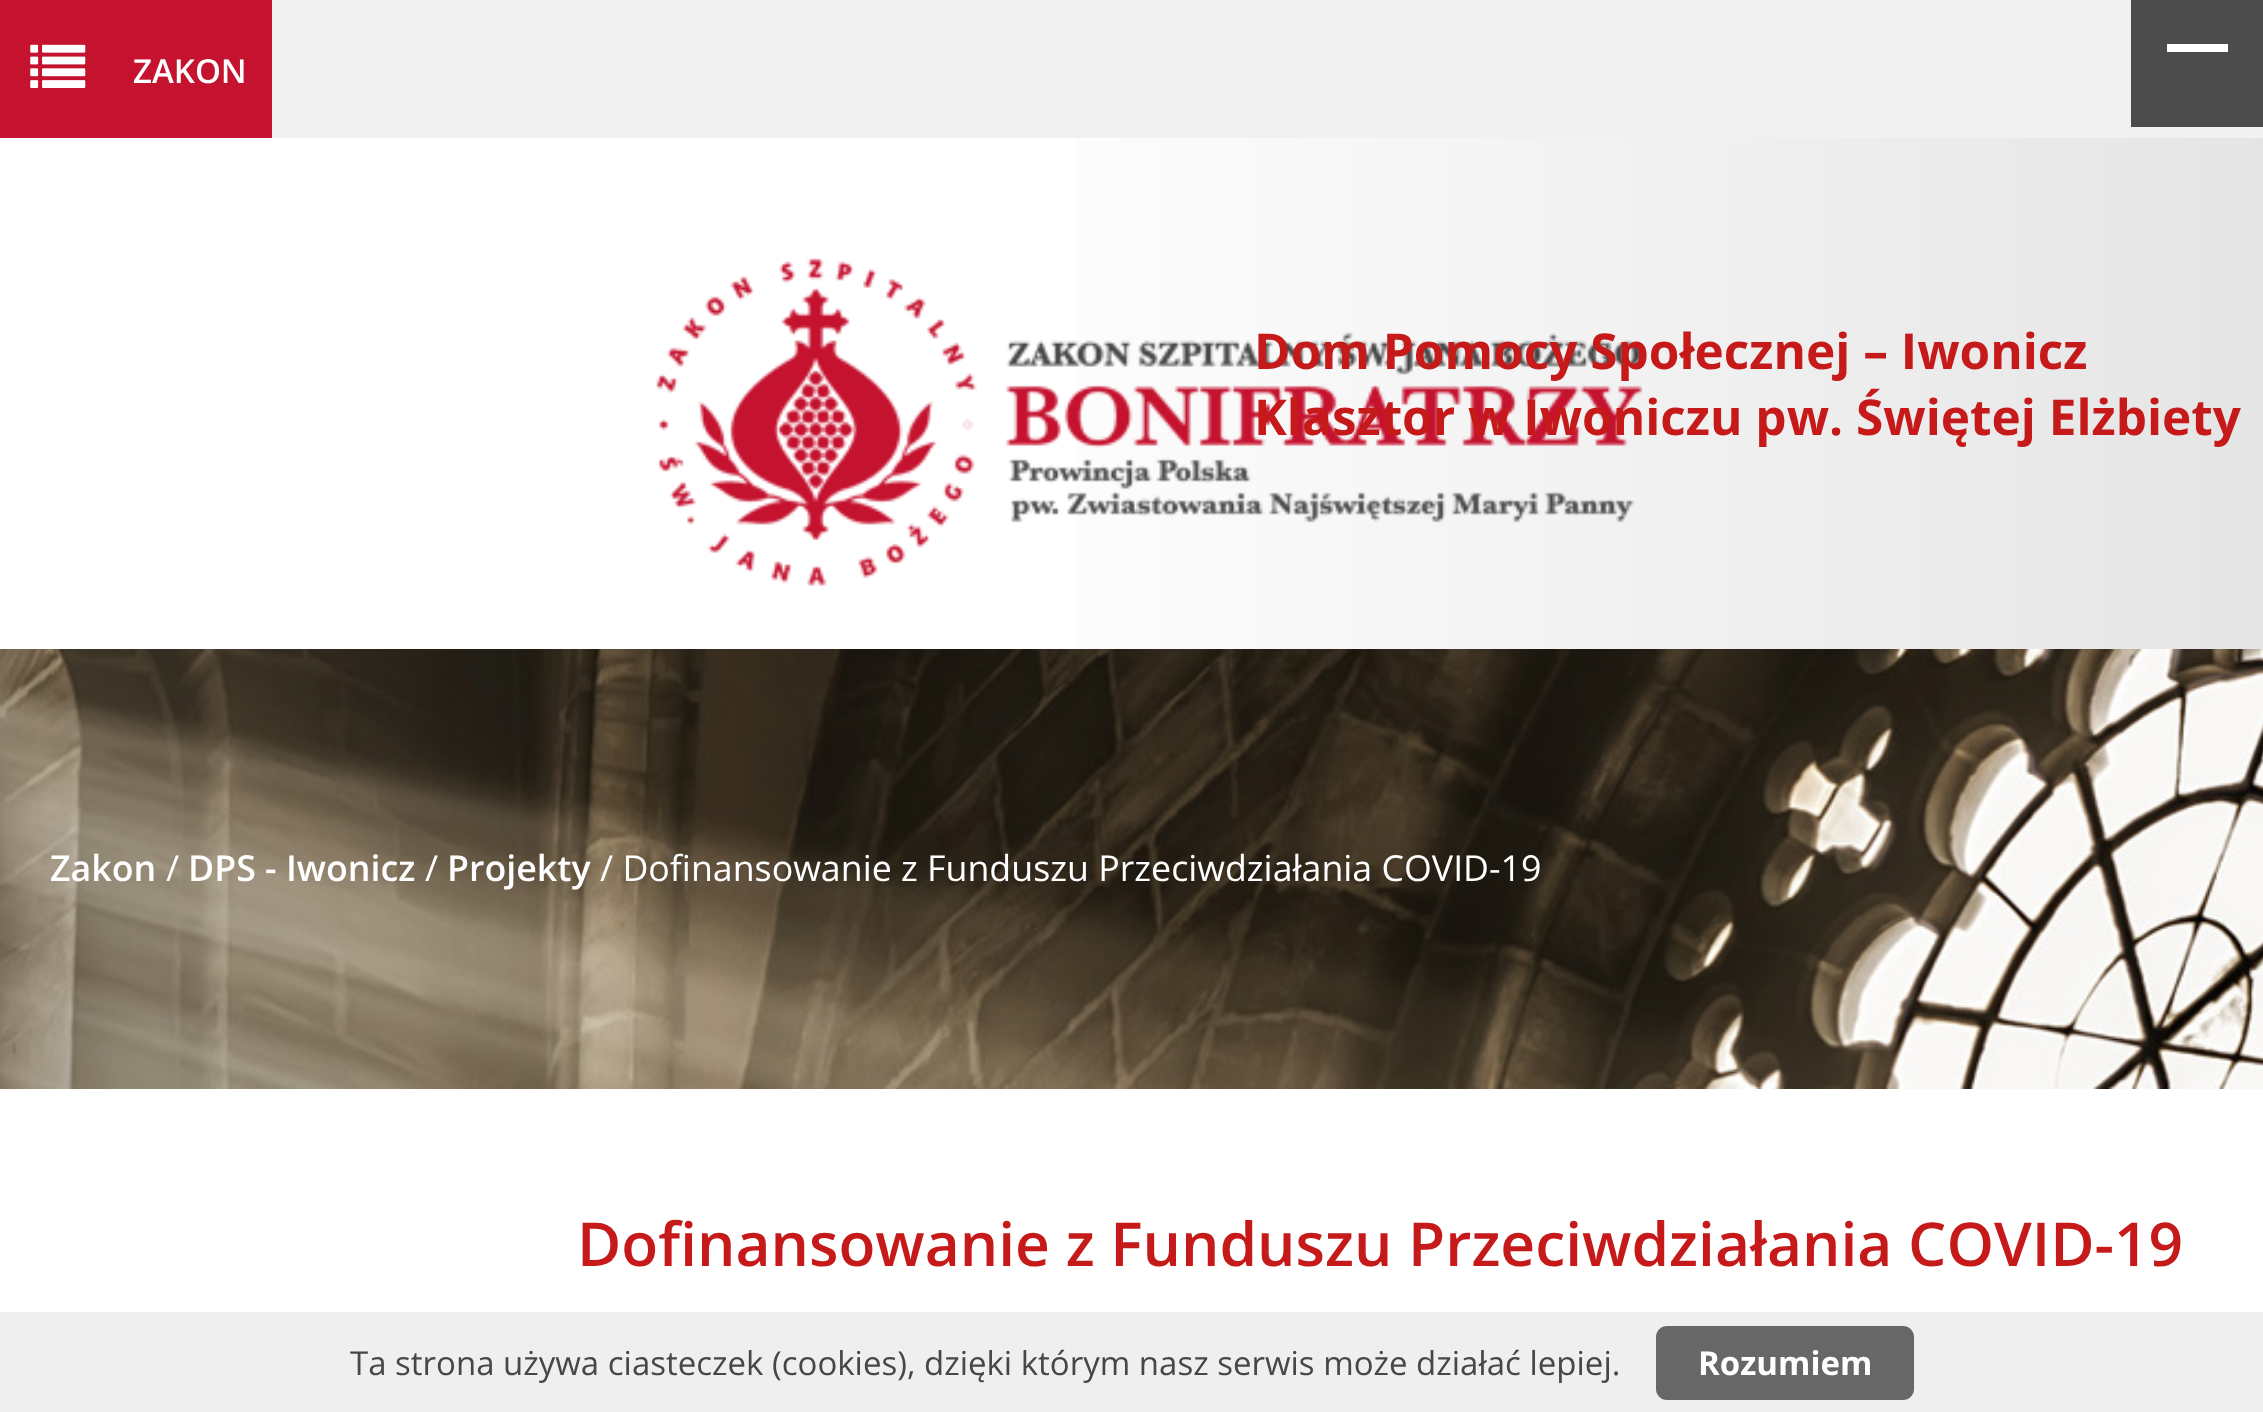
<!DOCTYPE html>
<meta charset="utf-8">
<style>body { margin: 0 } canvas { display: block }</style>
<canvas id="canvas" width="2263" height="1412"></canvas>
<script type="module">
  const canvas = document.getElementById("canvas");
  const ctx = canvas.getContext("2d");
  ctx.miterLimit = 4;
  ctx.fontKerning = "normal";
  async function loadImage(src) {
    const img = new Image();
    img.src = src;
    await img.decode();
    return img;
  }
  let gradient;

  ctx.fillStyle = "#ffffff";
  ctx.fillRect(0, 0, 2263, 1412);
  ctx.fillStyle = "#f1f1f1";
  ctx.fillRect(272, 0, 1991, 138);
  ctx.fillStyle = "#c4122f";
  ctx.fillRect(0, 0, 272, 138);
  ctx.drawImage(await loadImage("img1.png"), 30, 44, 56, 44);
  ctx.font = "600 33px Open Sans";
  ctx.fillStyle = "#ffffff";
  ctx.fillText("ZAKON", 133, 83);
  ctx.fillStyle = "#4c4c4c";
  ctx.fillRect(2131, 0, 132, 127);
  ctx.fillStyle = "#ffffff";
  ctx.fillRect(2167, 44, 61, 8);
  gradient = ctx.createLinearGradient(0, 393, 2263, 393);
  gradient.addColorStop(0, "#ffffff");
  gradient.addColorStop(0.42, "#ffffff");
  gradient.addColorStop(1, "#e5e5e5");
  ctx.fillStyle = gradient;
  ctx.fillRect(1077, 138, 1186, 511);
  ctx.drawImage(await loadImage("img2.png"), 656, 258, 986, 328);
  ctx.font = "bold 49.5px Open Sans";
  ctx.fillStyle = "#c6191a";
  ctx.fillText("Dom Pomocy Społecznej – Iwonicz", 1254, 369);
  ctx.fillText("Klasztor w Iwoniczu pw. Świętej Elżbiety", 1254, 435);
  ctx.drawImage(await loadImage("img3.png"), 0, 649, 2263, 440);
  ctx.font = "600 35.75px Open Sans";
  ctx.fillStyle = "#ffffff";
  ctx.fillText("Zakon", 50, 881);
  ctx.font = "35.75px Open Sans";
  ctx.fillText("/", 166, 881);
  ctx.font = "600 35.75px Open Sans";
  ctx.fillText("DPS - Iwonicz", 188, 881);
  ctx.font = "35.75px Open Sans";
  ctx.fillText("/", 425, 881);
  ctx.font = "600 35.75px Open Sans";
  ctx.fillText("Projekty", 447, 881);
  ctx.font = "35.75px Open Sans";
  ctx.fillText("/ Dofinansowanie z Funduszu Przeciwdziałania COVID-19", 600, 881);
  ctx.font = "600 60.5px Open Sans";
  ctx.fillStyle = "#c6191a";
  ctx.fillText("Dofinansowanie z Funduszu Przeciwdziałania COVID-19", 577, 1266);
  ctx.fillStyle = "#efefef";
  ctx.fillRect(0, 1312, 2263, 100);
  ctx.font = "33px Open Sans";
  ctx.fillStyle = "#474747";
  ctx.fillText("Ta strona używa ciasteczek (cookies), dzięki którym nasz serwis może działać lepiej.", 350, 1375);
  ctx.fillStyle = "#676767";
  ctx.beginPath();
  ctx.roundRect(1656, 1326, 258, 74, 11);
  ctx.fill();
  ctx.font = "bold 33px Open Sans";
  ctx.fillStyle = "#ffffff";
  ctx.fillText("Rozumiem", 1698, 1375);
</script>
